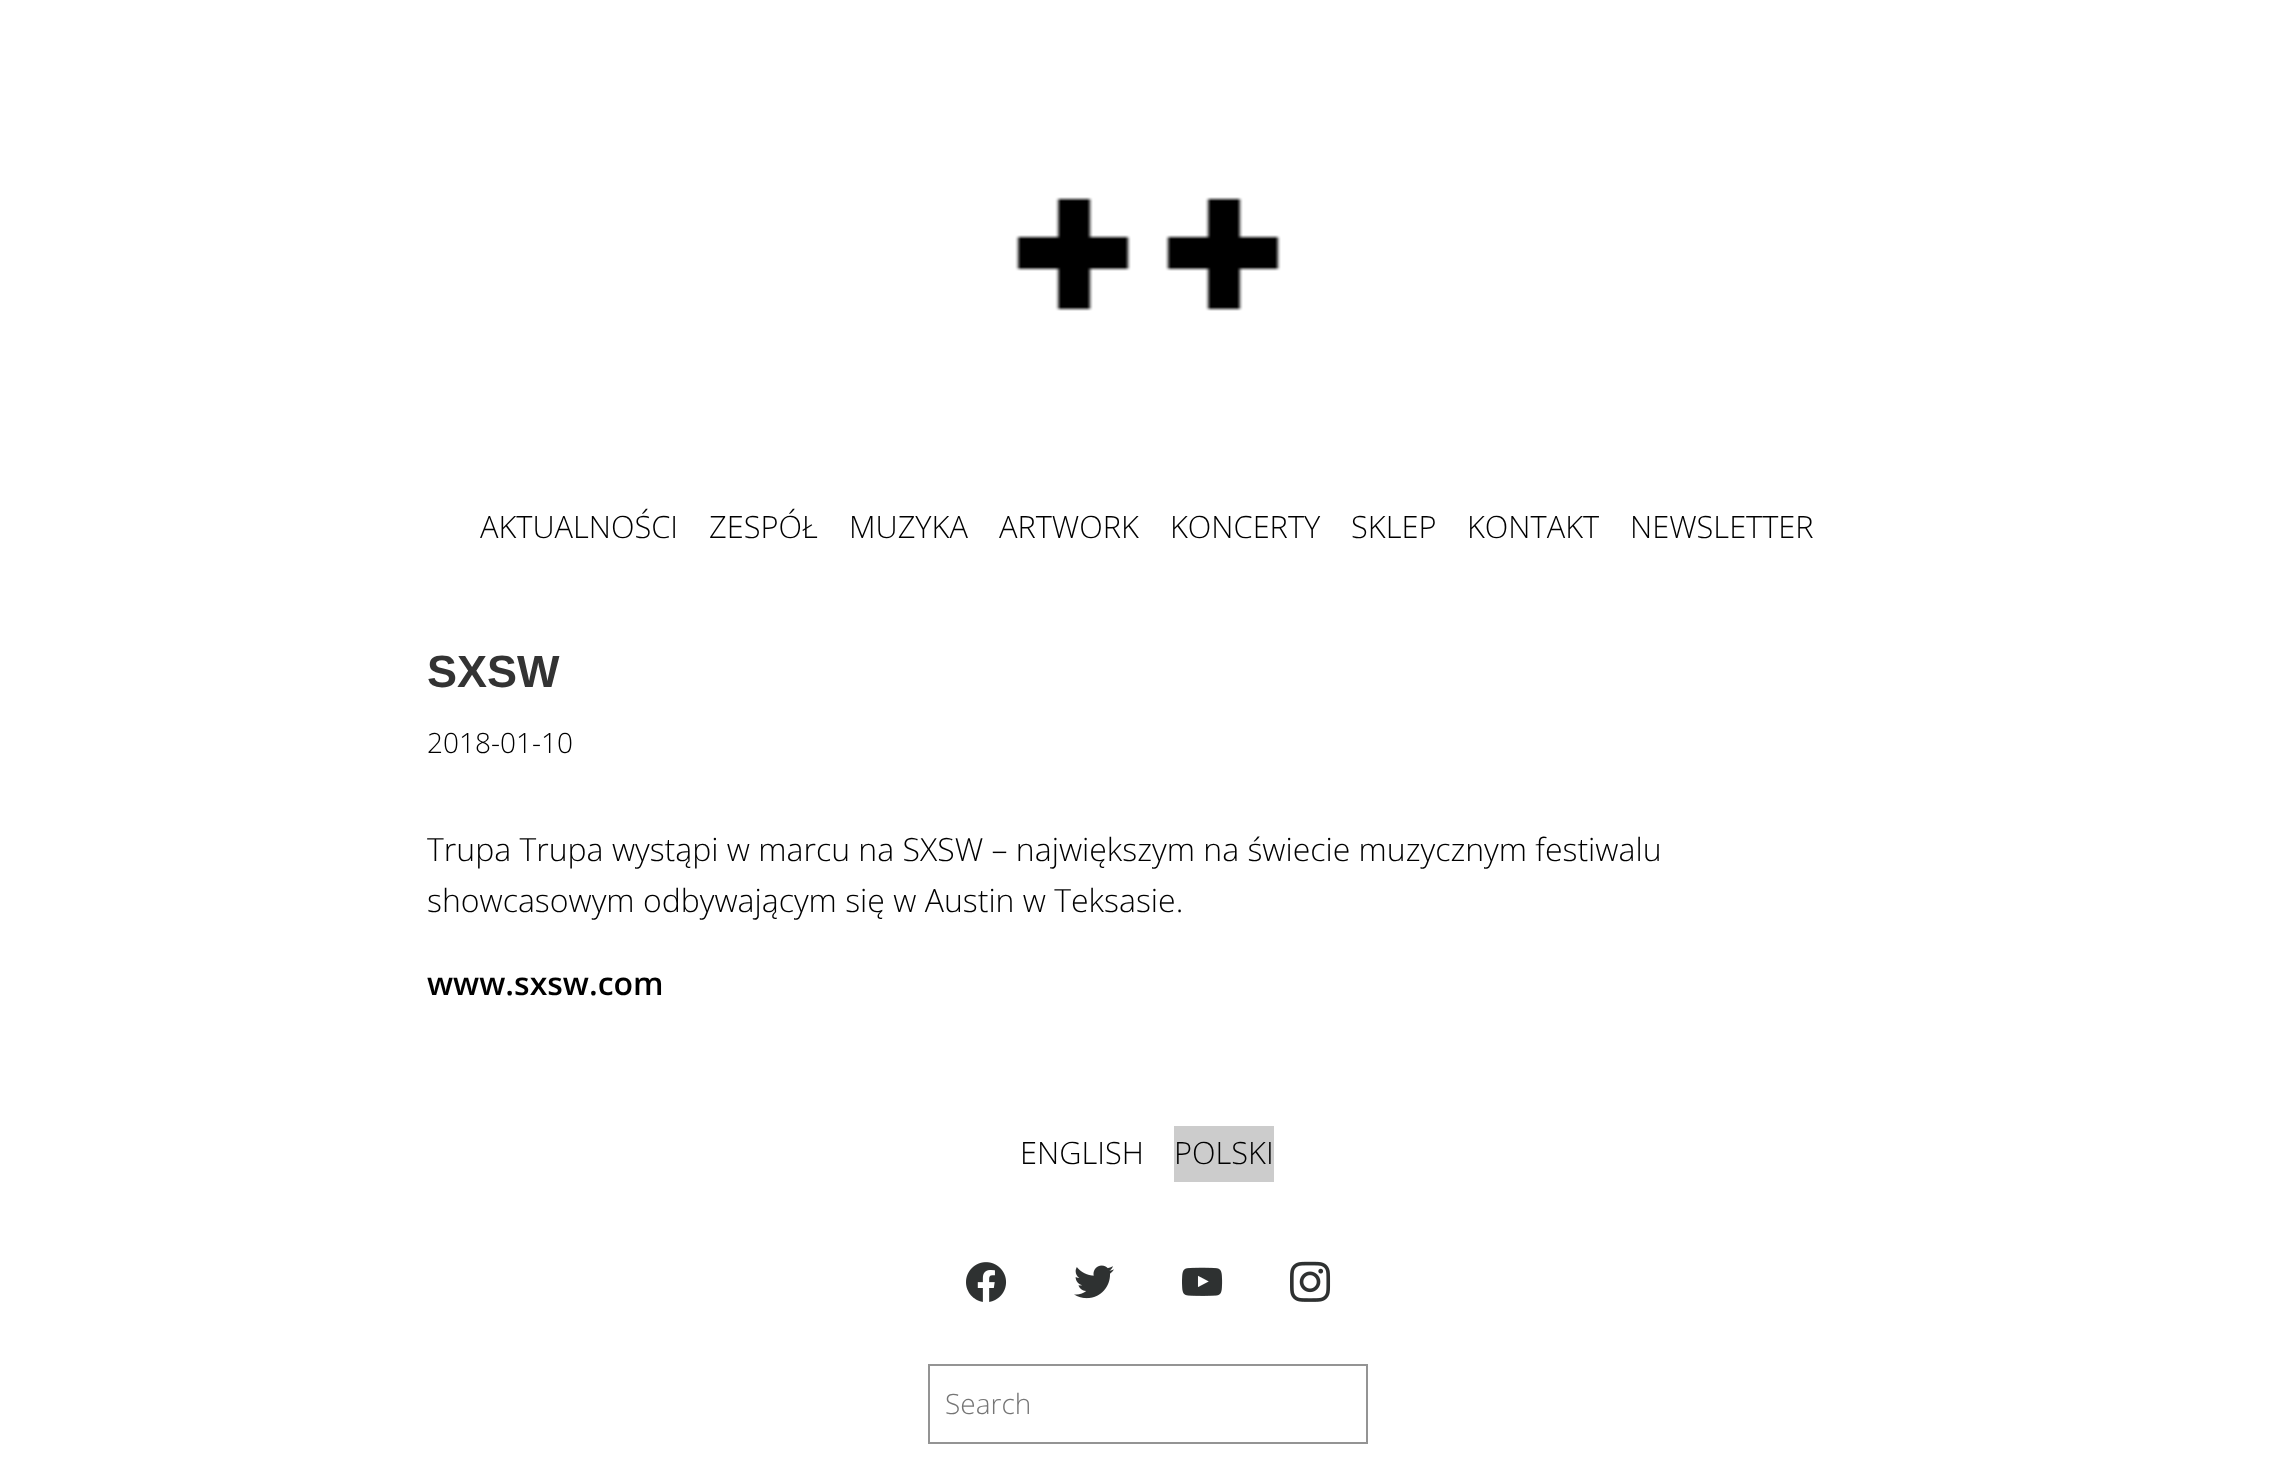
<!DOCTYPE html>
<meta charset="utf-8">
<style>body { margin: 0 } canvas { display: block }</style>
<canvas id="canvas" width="2294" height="1458"></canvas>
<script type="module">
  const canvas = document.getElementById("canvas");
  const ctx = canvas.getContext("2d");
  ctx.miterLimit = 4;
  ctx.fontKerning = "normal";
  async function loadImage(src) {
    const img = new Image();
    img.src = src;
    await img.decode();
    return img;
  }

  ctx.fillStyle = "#ffffff";
  ctx.fillRect(0, 0, 2294, 1458);
  ctx.drawImage(await loadImage("img1.png"), 1015, 197, 266, 114);
  ctx.font = "300 30.75px Open Sans";
  ctx.fillStyle = "#000000";
  ctx.fillText("AKTUALNOŚCI", 480, 538);
  ctx.fillText("ZESPÓŁ", 709, 538);
  ctx.fillText("MUZYKA", 849, 538);
  ctx.fillText("ARTWORK", 999, 538);
  ctx.fillText("KONCERTY", 1170, 538);
  ctx.fillText("SKLEP", 1351, 538);
  ctx.fillText("KONTAKT", 1467, 538);
  ctx.fillText("NEWSLETTER", 1630, 538);
  ctx.font = "bold 45px Liberation Sans";
  ctx.fillStyle = "#333333";
  ctx.fillText("SXSW", 427, 687);
  ctx.font = "300 28px Open Sans";
  ctx.fillStyle = "#000000";
  ctx.fillText("2018-01-10", 427, 753);
  ctx.font = "300 32px Open Sans";
  ctx.fillText("Trupa Trupa wystąpi w marcu na SXSW – największym na świecie muzycznym festiwalu", 427, 861);
  ctx.fillText("showcasowym odbywającym się w Austin w Teksasie.", 427, 912);
  ctx.font = "600 32px Open Sans";
  ctx.fillText("www.sxsw.com", 427, 995);
  ctx.font = "300 30.75px Open Sans";
  ctx.fillText("ENGLISH", 1020, 1164);
  ctx.fillStyle = "#cccccc";
  ctx.fillRect(1174, 1126, 100, 56);
  ctx.fillStyle = "#000000";
  ctx.fillText("POLSKI", 1174, 1164);
  ctx.drawImage(await loadImage("img2.png"), 966, 1262, 41, 40);
  ctx.drawImage(await loadImage("img3.png"), 1074, 1265, 40, 34);
  ctx.drawImage(await loadImage("img4.png"), 1182, 1267, 41, 29);
  ctx.drawImage(await loadImage("img5.png"), 1290, 1261, 41, 41);
  ctx.strokeStyle = "#949494";
  ctx.lineWidth = 2;
  ctx.strokeRect(929, 1365, 438, 78);
  ctx.font = "300 28px Open Sans";
  ctx.fillStyle = "#757575";
  ctx.fillText("Search", 945, 1414);
</script>
